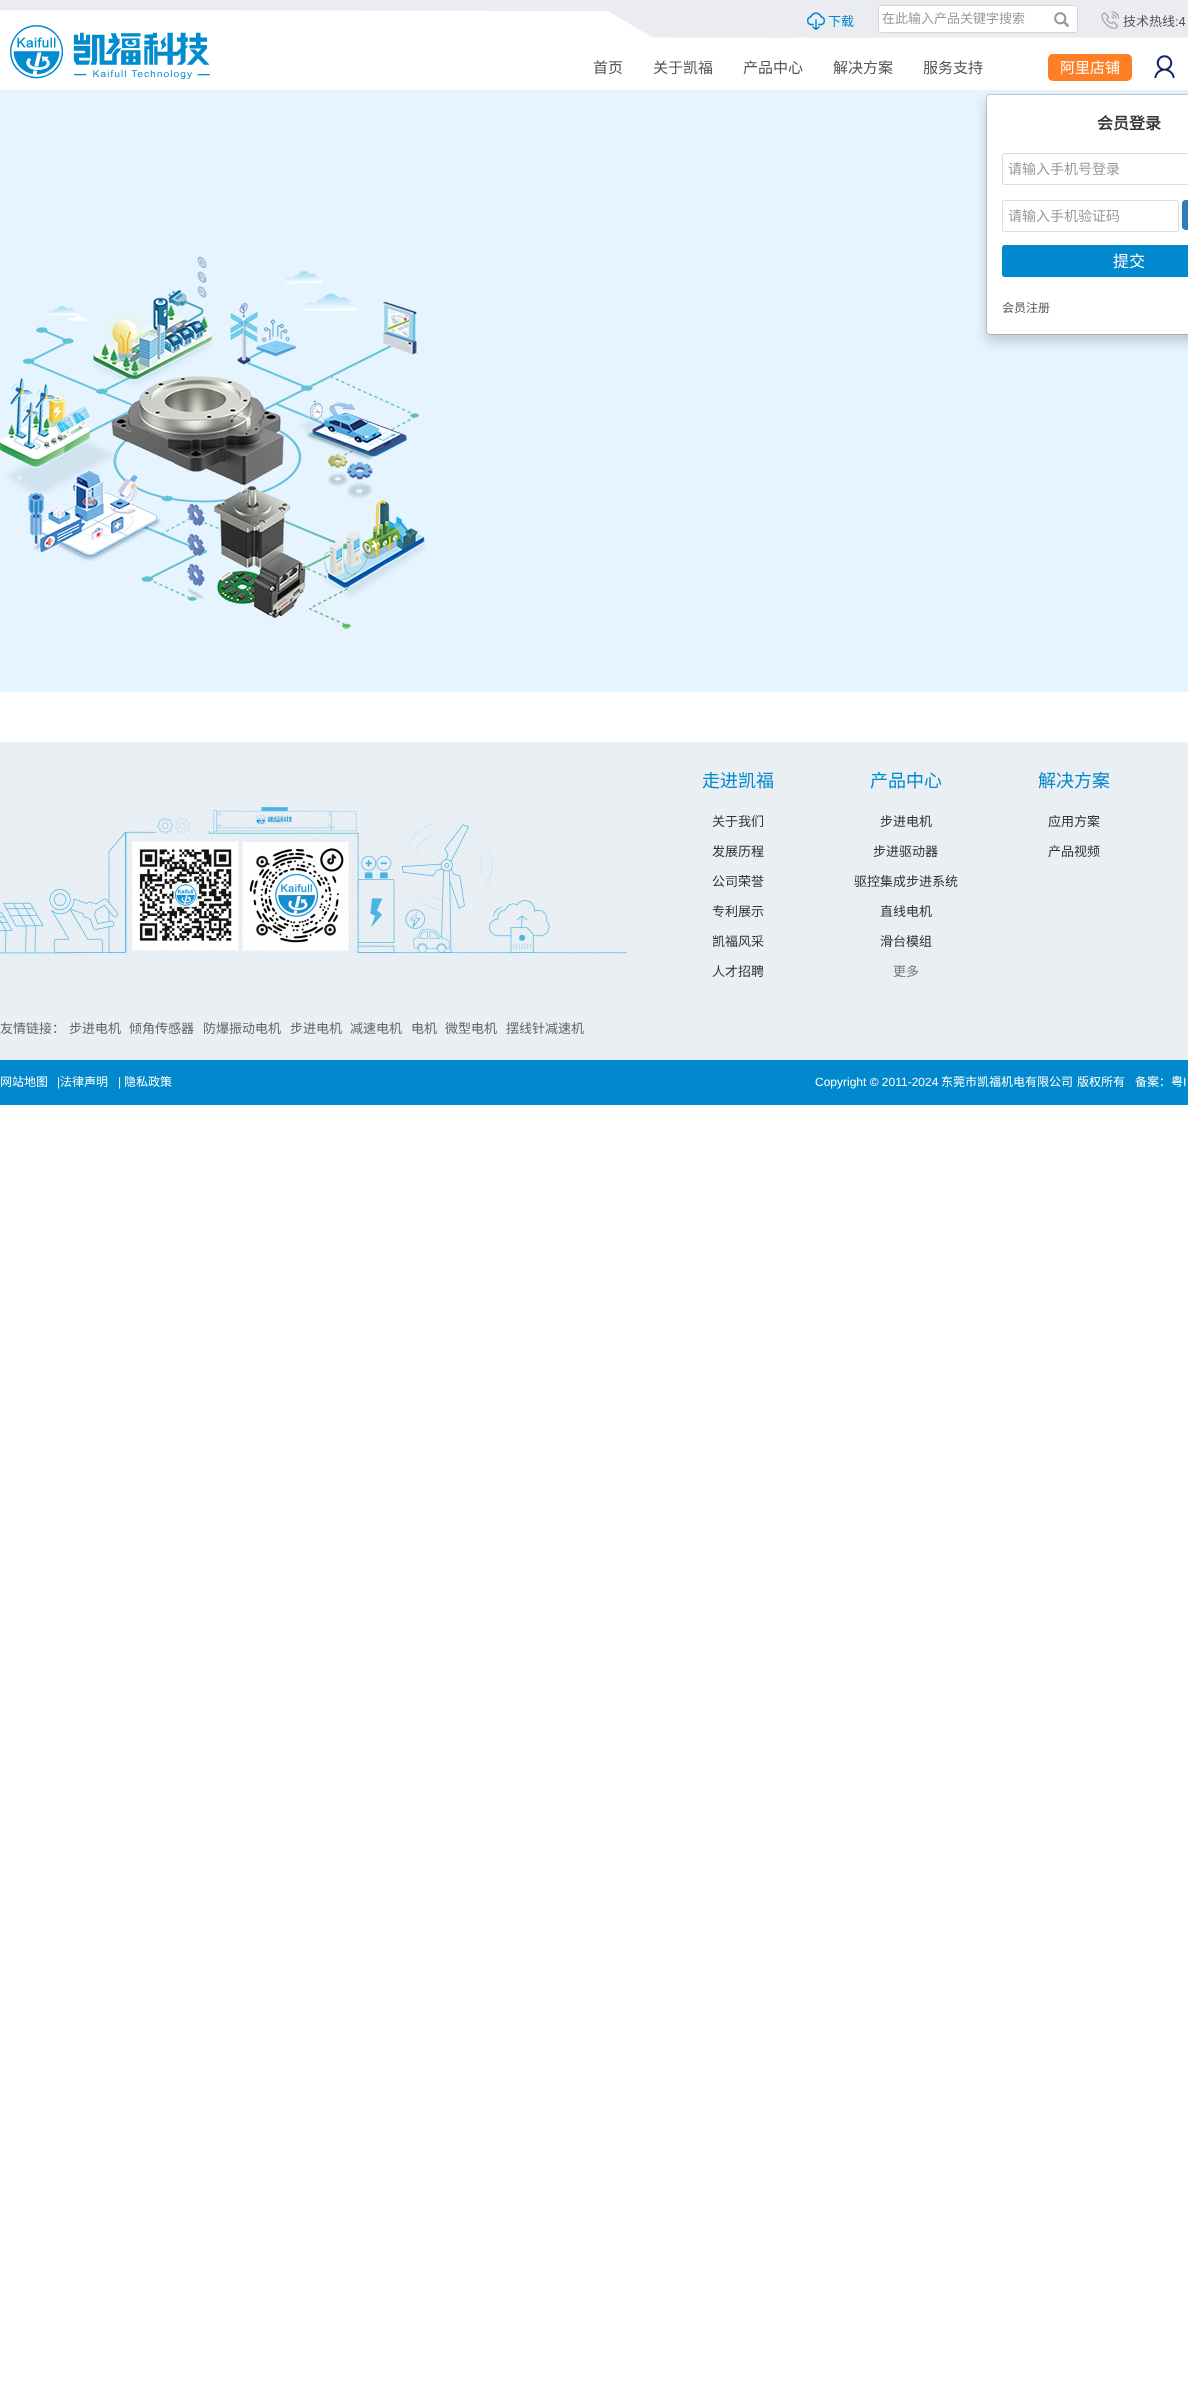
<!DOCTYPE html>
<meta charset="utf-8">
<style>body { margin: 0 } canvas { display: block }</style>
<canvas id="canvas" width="1188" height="2381"></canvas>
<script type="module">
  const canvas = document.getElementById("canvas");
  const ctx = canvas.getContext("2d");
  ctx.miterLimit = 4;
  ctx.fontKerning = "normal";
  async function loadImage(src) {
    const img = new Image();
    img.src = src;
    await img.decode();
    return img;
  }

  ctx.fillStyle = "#ffffff";
  ctx.fillRect(0, 0, 1188, 2381);
  ctx.drawImage(await loadImage("img1.png"), 0, 0, 1188, 38);
  ctx.drawImage(await loadImage("img2.png"), 10, 25, 200, 54);
  ctx.drawImage(await loadImage("img3.png"), 807, 12, 18, 18);
  ctx.font = "13px Noto Sans CJK SC";
  ctx.fillStyle = "#0089cc";
  ctx.fillText("下载", 828, 26);
  ctx.fillStyle = "#ffffff";
  ctx.beginPath();
  ctx.roundRect(878.5, 5.5, 199, 27, 2.5);
  ctx.fill();
  ctx.strokeStyle = "#d6d6d6";
  ctx.stroke();
  ctx.fillStyle = "#999999";
  ctx.fillText("在此输入产品关键字搜索", 882, 23);
  ctx.drawImage(await loadImage("img4.png"), 1054, 12, 15, 15);
  ctx.drawImage(await loadImage("img5.png"), 1101, 11, 19, 18);
  ctx.fillStyle = "#555555";
  ctx.fillText("技术热线", 1123, 26);
  ctx.font = "13px Liberation Sans";
  ctx.fillText(":4", 1175, 26);
  ctx.font = "15px Noto Sans CJK SC";
  ctx.fillText("首页", 593, 73);
  ctx.fillText("关于凯福", 653, 73);
  ctx.fillText("产品中心", 743, 73);
  ctx.fillText("解决方案", 833, 73);
  ctx.fillText("服务支持", 923, 73);
  ctx.fillStyle = "#ff7f27";
  ctx.beginPath();
  ctx.roundRect(1048, 54, 84, 27, 5);
  ctx.fill();
  ctx.fillStyle = "#ffffff";
  ctx.fillText("阿里店铺", 1060, 73);
  ctx.drawImage(await loadImage("img6.png"), 1154, 55, 21, 24);
  ctx.fillStyle = "#e6f4ff";
  ctx.fillRect(0, 90, 1188, 602);
  ctx.fillStyle = "rgba(0, 0, 0, 0.18)";
  ctx.filter = "blur(6px)";
  ctx.beginPath();
  ctx.roundRect(986, 100, 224, 241, 4);
  ctx.fill();
  ctx.filter = "none";
  ctx.fillStyle = "#ffffff";
  ctx.beginPath();
  ctx.roundRect(987, 95, 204, 239, 3);
  ctx.fill();
  ctx.beginPath();
  ctx.roundRect(986.5, 94.5, 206, 240, 3.5);
  ctx.strokeStyle = "rgba(0, 0, 0, 0.15)";
  ctx.stroke();
  ctx.font = "bold 16px Noto Sans CJK SC";
  ctx.fillStyle = "#333333";
  ctx.fillText("会员登录", 1097, 129);
  ctx.beginPath();
  ctx.roundRect(1002.5, 153.5, 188, 31, 1.5);
  ctx.strokeStyle = "#dddddd";
  ctx.stroke();
  ctx.font = "14px Noto Sans CJK SC";
  ctx.fillStyle = "#999999";
  ctx.fillText("请输入手机号登录", 1008, 174);
  ctx.beginPath();
  ctx.roundRect(1002.5, 200.5, 176, 31, 1.5);
  ctx.stroke();
  ctx.fillText("请输入手机验证码", 1008, 221);
  ctx.fillStyle = "#337ab7";
  ctx.beginPath();
  ctx.roundRect(1182, 200, 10, 30, 4);
  ctx.fill();
  ctx.fillStyle = "#0089cc";
  ctx.beginPath();
  ctx.roundRect(1002, 245, 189, 32, 3);
  ctx.fill();
  ctx.font = "16px Noto Sans CJK SC";
  ctx.fillStyle = "#ffffff";
  ctx.fillText("提交", 1113, 267);
  ctx.font = "12px Noto Sans CJK SC";
  ctx.fillStyle = "#555555";
  ctx.fillText("会员注册", 1002, 312);
  ctx.drawImage(await loadImage("img7.png"), 0, 256, 426, 373);
  ctx.fillStyle = "#eaeff4";
  ctx.fillRect(0, 742, 1188, 318);
  ctx.drawImage(await loadImage("img8.png"), 0, 802, 630, 160);
  ctx.font = "18px Noto Sans CJK SC";
  ctx.fillStyle = "#0089cc";
  ctx.fillText("走进凯福", 702, 787);
  ctx.font = "13px Noto Sans CJK SC";
  ctx.fillStyle = "#333333";
  ctx.fillText("关于我们", 712, 826);
  ctx.fillText("发展历程", 712, 856);
  ctx.fillText("公司荣誉", 712, 886);
  ctx.fillText("专利展示", 712, 916);
  ctx.fillText("凯福风采", 712, 946);
  ctx.fillText("人才招聘", 712, 976);
  ctx.font = "18px Noto Sans CJK SC";
  ctx.fillStyle = "#0089cc";
  ctx.fillText("产品中心", 870, 787);
  ctx.font = "13px Noto Sans CJK SC";
  ctx.fillStyle = "#333333";
  ctx.fillText("步进电机", 880, 826);
  ctx.fillText("步进驱动器", 873, 856);
  ctx.fillText("驱控集成步进系统", 854, 886);
  ctx.fillText("直线电机", 880, 916);
  ctx.fillText("滑台模组", 880, 946);
  ctx.fillStyle = "#777777";
  ctx.fillText("更多", 893, 976);
  ctx.font = "18px Noto Sans CJK SC";
  ctx.fillStyle = "#0089cc";
  ctx.fillText("解决方案", 1038, 787);
  ctx.font = "13px Noto Sans CJK SC";
  ctx.fillStyle = "#333333";
  ctx.fillText("应用方案", 1048, 826);
  ctx.fillText("产品视频", 1048, 856);
  ctx.fillStyle = "#666666";
  ctx.fillText("友情链接：", 0, 1033);
  ctx.fillText("步进电机", 69, 1033);
  ctx.fillText("倾角传感器", 129, 1033);
  ctx.fillText("防爆振动电机", 203, 1033);
  ctx.fillText("步进电机", 290, 1033);
  ctx.fillText("减速电机", 350, 1033);
  ctx.fillText("电机", 411, 1033);
  ctx.fillText("微型电机", 445, 1033);
  ctx.fillText("摆线针减速机", 506, 1033);
  ctx.fillStyle = "#0089cc";
  ctx.fillRect(0, 1060, 1188, 45);
  ctx.font = "12px Noto Sans CJK SC";
  ctx.fillStyle = "#ffffff";
  ctx.fillText("网站地图", 0, 1086);
  ctx.font = "12px Liberation Sans";
  ctx.fillText("|", 57, 1086);
  ctx.font = "12px Noto Sans CJK SC";
  ctx.fillText("法律声明", 60, 1086);
  ctx.font = "12px Liberation Sans";
  ctx.fillText("|", 118, 1086);
  ctx.font = "12px Noto Sans CJK SC";
  ctx.fillText("隐私政策", 124, 1086);
  ctx.font = "12px Liberation Sans";
  ctx.fillText("Copyright © 2011-2024", 815, 1086);
  ctx.font = "12px Noto Sans CJK SC";
  ctx.fillText("东莞市凯福机电有限公司", 941, 1086);
  ctx.fillText("版权所有", 1077, 1086);
  ctx.fillText("备案：粤", 1135, 1086);
  ctx.font = "12px Liberation Sans";
  ctx.fillText("I", 1183, 1086);
</script>
